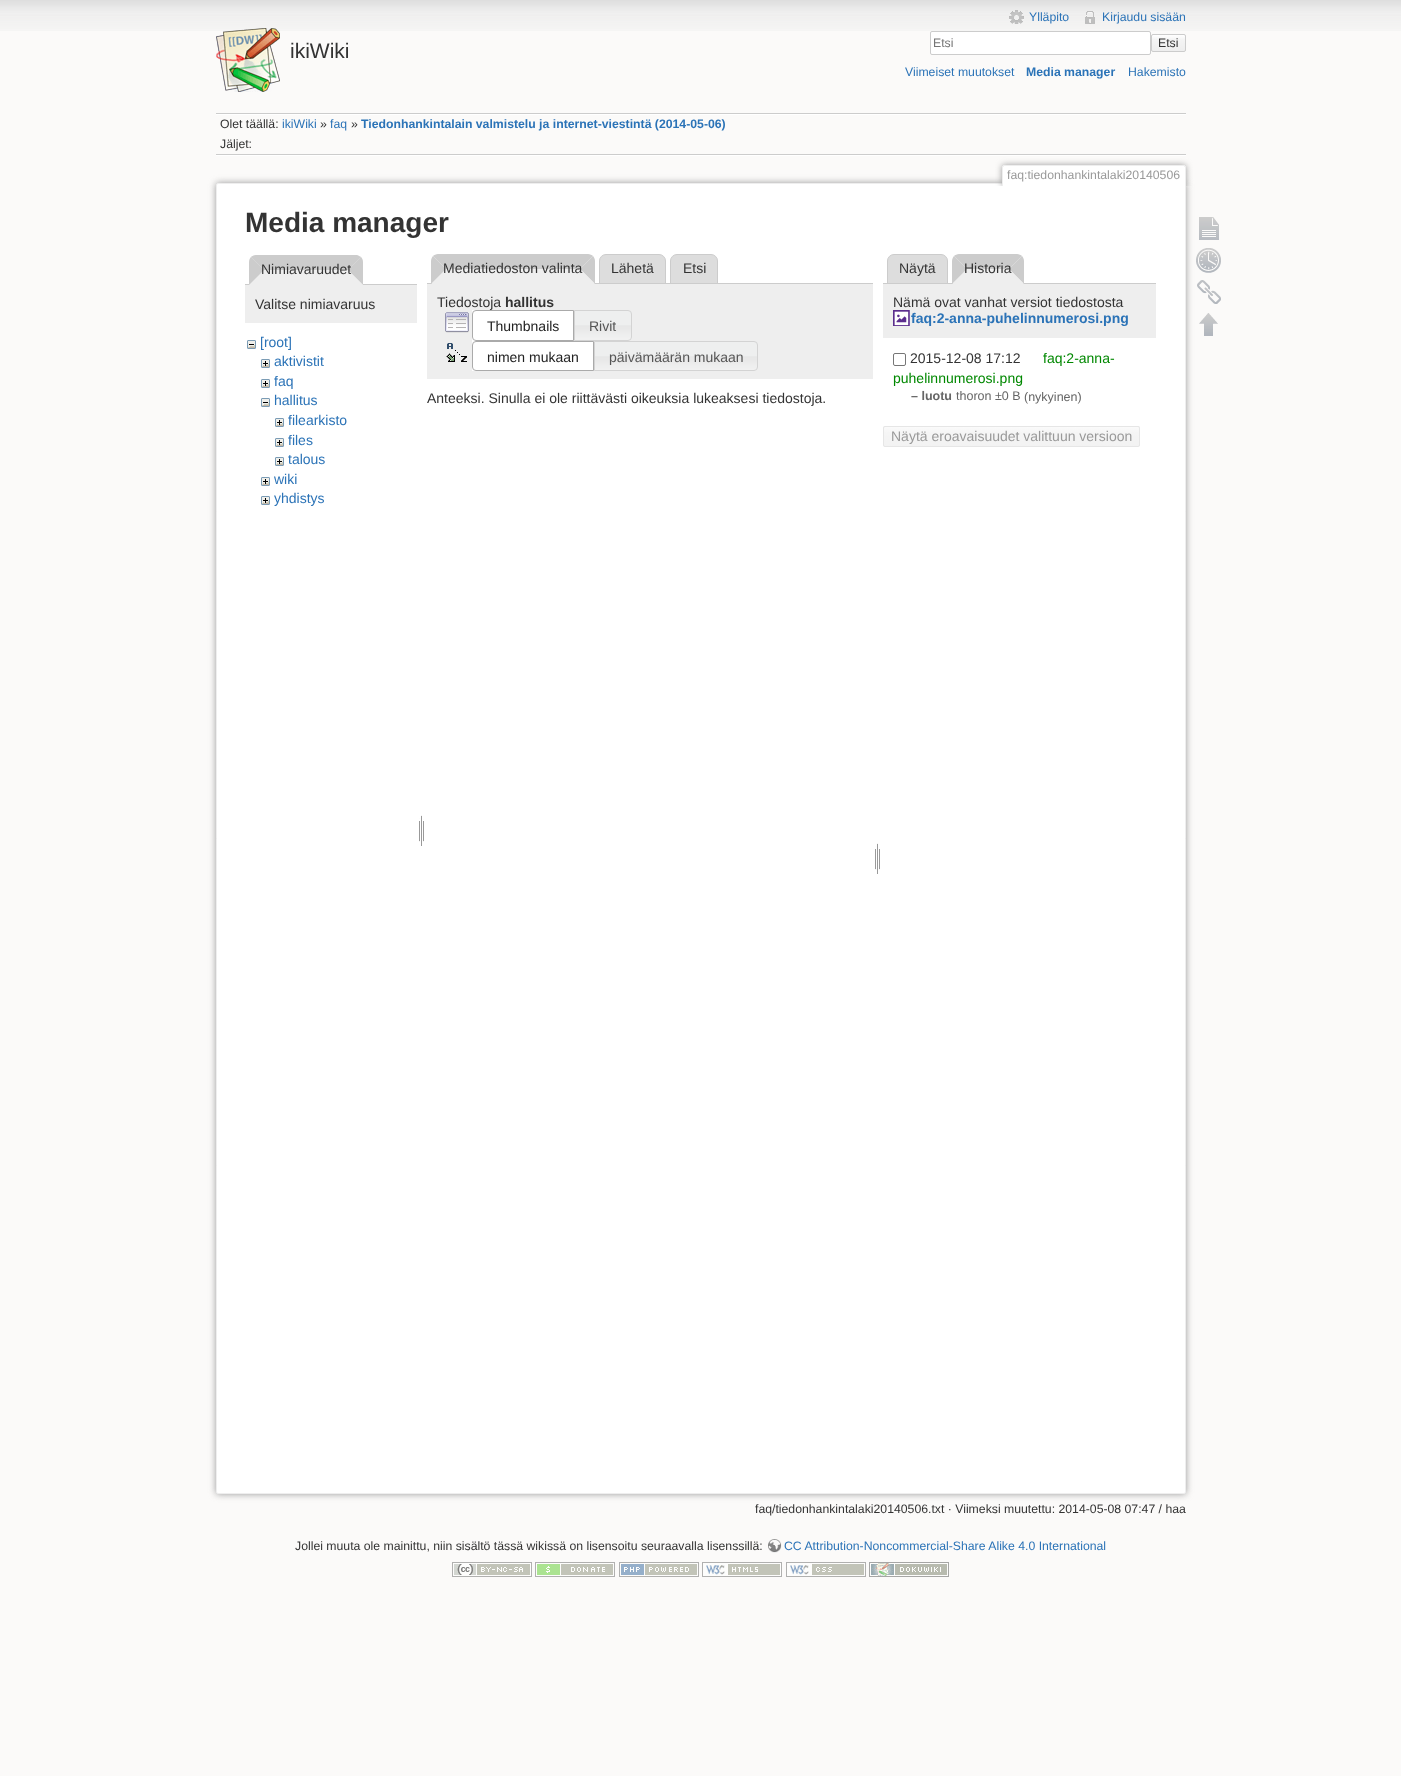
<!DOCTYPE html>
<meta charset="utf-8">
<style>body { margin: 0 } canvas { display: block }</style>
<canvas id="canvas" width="1401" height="1776"></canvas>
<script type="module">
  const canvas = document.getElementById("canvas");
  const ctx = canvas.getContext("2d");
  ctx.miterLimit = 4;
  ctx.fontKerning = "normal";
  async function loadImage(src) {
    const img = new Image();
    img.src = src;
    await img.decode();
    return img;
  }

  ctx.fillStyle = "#fbfaf9";
  ctx.fillRect(0, 0, 1401, 1776);
  ctx.drawImage(await loadImage("img1.png"), 0, 0, 1401, 31);
  ctx.drawImage(await loadImage("img2.png"), 216, 28, 64, 64);
  ctx.font = "21px Liberation Sans";
  ctx.fillStyle = "#333333";
  ctx.fillText("ikiWiki", 290, 58);
  ctx.drawImage(await loadImage("img3.png"), 1009, 10, 15, 14);
  ctx.font = "12.25px Liberation Sans";
  ctx.fillStyle = "#2b73b7";
  ctx.fillText("Ylläpito", 1029, 21);
  ctx.drawImage(await loadImage("img4.png"), 1085, 11, 10, 13);
  ctx.fillText("Kirjaudu sisään", 1102, 21);
  ctx.fillStyle = "#ffffff";
  ctx.beginPath();
  ctx.roundRect(930.5, 31.5, 220, 23, 1.5);
  ctx.fill();
  ctx.strokeStyle = "#cccccc";
  ctx.stroke();
  ctx.fillStyle = "#757575";
  ctx.fillText("Etsi", 933, 47);
  ctx.drawImage(await loadImage("img5.png"), 1151, 35, 35, 17);
  ctx.beginPath();
  ctx.roundRect(1151.5, 34.5, 34, 17, 1.5);
  ctx.stroke();
  ctx.fillStyle = "#333333";
  ctx.fillText("Etsi", 1158, 47);
  ctx.fillStyle = "#2b73b7";
  ctx.fillText("Viimeiset muutokset", 905, 76);
  ctx.font = "bold 12.25px Liberation Sans";
  ctx.fillText("Media manager", 1026, 76);
  ctx.font = "12.25px Liberation Sans";
  ctx.fillText("Hakemisto", 1128, 76);
  ctx.fillStyle = "#cccccc";
  ctx.fillRect(216, 113, 970, 1);
  ctx.fillStyle = "#ffffff";
  ctx.fillRect(216, 155, 970, 1);
  ctx.fillRect(216, 114, 970, 1);
  ctx.fillStyle = "#333333";
  ctx.fillText("Olet täällä:", 220, 128);
  ctx.fillStyle = "#2b73b7";
  ctx.fillText("ikiWiki", 282, 128);
  ctx.fillStyle = "#333333";
  ctx.fillText("»", 320, 128);
  ctx.fillStyle = "#2b73b7";
  ctx.fillText("faq", 330, 128);
  ctx.fillStyle = "#333333";
  ctx.fillText("»", 351, 128);
  ctx.font = "bold 12.25px Liberation Sans";
  ctx.fillStyle = "#2b73b7";
  ctx.fillText("Tiedonhankintalain valmistelu ja internet-viestintä (2014-05-06)", 361, 128);
  ctx.fillStyle = "#cccccc";
  ctx.fillRect(216, 154, 970, 1);
  ctx.font = "12.25px Liberation Sans";
  ctx.fillStyle = "#333333";
  ctx.fillText("Jäljet:", 220, 148);
  ctx.fillStyle = "#999999";
  ctx.filter = "blur(3.5px)";
  ctx.beginPath();
  ctx.roundRect(216, 183, 970, 1311, 2);
  ctx.fill();
  ctx.filter = "none";
  ctx.fillStyle = "#ffffff";
  ctx.beginPath();
  ctx.roundRect(216.5, 183.5, 969, 1310, 1.5);
  ctx.fill();
  ctx.strokeStyle = "#eeeeee";
  ctx.stroke();
  ctx.save();
  ctx.beginPath();
  ctx.rect(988, 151, 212, 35);
  ctx.clip();
  ctx.fillStyle = "#999999";
  ctx.filter = "blur(3px)";
  ctx.beginPath();
  ctx.roundRect(1002, 165, 184, 21, 2);
  ctx.fill();
  ctx.filter = "none";
  ctx.restore();
  ctx.beginPath();
  ctx.roundRect(1003, 166, 182, 20, [1, 1, 0, 0]);
  ctx.fill();
  ctx.fillStyle = "#eeeeee";
  ctx.fillRect(1003, 165, 182, 1);
  ctx.fillRect(1185, 166, 1, 20);
  ctx.fillRect(1002, 166, 1, 20);
  ctx.fillStyle = "#999999";
  ctx.fillText("faq:tiedonhankintalaki20140506", 1007, 179);
  ctx.font = "bold 28px Liberation Sans";
  ctx.fillStyle = "#333333";
  ctx.fillText("Media manager", 245, 232);
  ctx.fillStyle = "#cccccc";
  ctx.fillRect(245, 284, 172, 1);
  ctx.fillStyle = "#eeeeee";
  ctx.beginPath();
  ctx.roundRect(249, 255, 114, 30, [7, 7, 0, 0]);
  ctx.fill();
  ctx.fillStyle = "#cccccc";
  ctx.beginPath();
  ctx.moveTo(256, 255);
  ctx.lineTo(357, 255);
  ctx.lineTo(361, 257);
  ctx.lineTo(348, 270);
  ctx.lineTo(264, 270);
  ctx.lineTo(251, 257);
  ctx.bezierCurveTo(252, 256, 254, 255, 256, 255);
  ctx.closePath();
  ctx.fill();
  ctx.beginPath();
  ctx.moveTo(361, 257);
  ctx.lineTo(348, 270);
  ctx.lineTo(363, 285);
  ctx.lineTo(363, 262);
  ctx.bezierCurveTo(363, 260, 362, 258, 361, 257);
  ctx.closePath();
  ctx.fill();
  ctx.fillStyle = "#eeeeee";
  ctx.beginPath();
  ctx.moveTo(363, 285);
  ctx.lineTo(348, 270);
  ctx.lineTo(264, 270);
  ctx.lineTo(249, 285);
  ctx.closePath();
  ctx.fill();
  ctx.fillStyle = "#cccccc";
  ctx.beginPath();
  ctx.moveTo(249, 285);
  ctx.lineTo(249, 262);
  ctx.bezierCurveTo(249, 260, 250, 258, 251, 257);
  ctx.lineTo(264, 270);
  ctx.closePath();
  ctx.fill();
  ctx.font = "14px Liberation Sans";
  ctx.fillStyle = "#333333";
  ctx.fillText("Nimiavaruudet", 261, 274);
  ctx.fillStyle = "#eeeeee";
  ctx.fillRect(245, 285, 172, 38);
  ctx.fillStyle = "#333333";
  ctx.fillText("Valitse nimiavaruus", 255, 309);
  ctx.drawImage(await loadImage("img6.png"), 247, 340, 9, 9);
  ctx.fillStyle = "#2b73b7";
  ctx.fillText("[root]", 260, 347);
  ctx.drawImage(await loadImage("img7.png"), 261, 359, 9, 9);
  ctx.fillText("aktivistit", 274, 366);
  ctx.drawImage(await loadImage("img7.png"), 261, 379, 9, 9);
  ctx.fillText("faq", 274, 386);
  ctx.drawImage(await loadImage("img6.png"), 261, 398, 9, 9);
  ctx.fillText("hallitus", 274, 405);
  ctx.drawImage(await loadImage("img7.png"), 275, 418, 9, 9);
  ctx.fillText("filearkisto", 288, 425);
  ctx.drawImage(await loadImage("img7.png"), 275, 438, 9, 9);
  ctx.fillText("files", 288, 445);
  ctx.drawImage(await loadImage("img7.png"), 275, 457, 9, 9);
  ctx.fillText("talous", 288, 464);
  ctx.drawImage(await loadImage("img7.png"), 261, 477, 9, 9);
  ctx.fillText("wiki", 274, 484);
  ctx.drawImage(await loadImage("img7.png"), 261, 496, 9, 9);
  ctx.fillText("yhdistys", 274, 503);
  ctx.drawImage(await loadImage("img8.png"), 419, 815, 5, 31);
  ctx.fillStyle = "#cccccc";
  ctx.beginPath();
  ctx.moveTo(438, 254);
  ctx.lineTo(588, 254);
  ctx.bezierCurveTo(590, 254, 592, 255, 593, 256);
  ctx.lineTo(580, 269);
  ctx.lineTo(446, 269);
  ctx.lineTo(433, 256);
  ctx.bezierCurveTo(434, 255, 436, 254, 438, 254);
  ctx.closePath();
  ctx.fill();
  ctx.fillStyle = "#dddddd";
  ctx.beginPath();
  ctx.roundRect(599.5, 254.5, 66, 29, [6.5, 6.5, 0, 0]);
  ctx.fill();
  ctx.strokeStyle = "#cccccc";
  ctx.stroke();
  ctx.beginPath();
  ctx.roundRect(670.5, 254.5, 47, 29, [6.5, 6.5, 0, 0]);
  ctx.fill();
  ctx.stroke();
  ctx.fillStyle = "#cccccc";
  ctx.fillRect(427, 283, 446, 1);
  ctx.beginPath();
  ctx.moveTo(593, 256);
  ctx.lineTo(580, 269);
  ctx.lineTo(595, 284);
  ctx.lineTo(595, 261);
  ctx.bezierCurveTo(595, 259, 594, 257, 593, 256);
  ctx.closePath();
  ctx.fill();
  ctx.fillStyle = "#eeeeee";
  ctx.beginPath();
  ctx.moveTo(595, 284);
  ctx.lineTo(580, 269);
  ctx.lineTo(446, 269);
  ctx.lineTo(431, 284);
  ctx.closePath();
  ctx.fill();
  ctx.fillStyle = "#cccccc";
  ctx.beginPath();
  ctx.moveTo(431, 284);
  ctx.lineTo(431, 261);
  ctx.bezierCurveTo(431, 259, 432, 257, 433, 256);
  ctx.lineTo(446, 269);
  ctx.closePath();
  ctx.fill();
  ctx.fillStyle = "#333333";
  ctx.fillText("Mediatiedoston valinta", 443, 273);
  ctx.fillText("Lähetä", 611, 273);
  ctx.fillText("Etsi", 683, 273);
  ctx.fillStyle = "#eeeeee";
  ctx.fillRect(427, 284, 446, 95);
  ctx.fillStyle = "#333333";
  ctx.fillText("Tiedostoja", 437, 307);
  ctx.font = "bold 14px Liberation Sans";
  ctx.fillText("hallitus", 505, 307);
  ctx.drawImage(await loadImage("img9.png"), 445, 312, 24, 21);
  ctx.fillStyle = "#ffffff";
  ctx.fillRect(472, 310, 101, 31);
  ctx.beginPath();
  ctx.roundRect(472.5, 310.5, 101, 30, [3.5, 0, 0, 3.5]);
  ctx.strokeStyle = "#aaaaaa";
  ctx.stroke();
  ctx.font = "14px Liberation Sans";
  ctx.fillStyle = "#212121";
  ctx.fillText("Thumbnails", 487, 331);
  ctx.drawImage(await loadImage("img10.png"), 575, 310, 57, 31);
  ctx.beginPath();
  ctx.roundRect(574.5, 310.5, 57, 30, [0, 3.5, 3.5, 0]);
  ctx.strokeStyle = "#d3d3d3";
  ctx.stroke();
  ctx.fillStyle = "#555555";
  ctx.fillText("Rivit", 589, 331);
  ctx.drawImage(await loadImage("img11.png"), 446, 343, 21, 19);
  ctx.fillStyle = "#ffffff";
  ctx.fillRect(472, 341, 121, 30);
  ctx.beginPath();
  ctx.roundRect(472.5, 341.5, 121, 29, [3.5, 0, 0, 3.5]);
  ctx.strokeStyle = "#aaaaaa";
  ctx.stroke();
  ctx.fillStyle = "#212121";
  ctx.fillText("nimen mukaan", 487, 362);
  ctx.drawImage(await loadImage("img12.png"), 595, 341, 163, 30);
  ctx.beginPath();
  ctx.roundRect(594.5, 341.5, 163, 29, [0, 3.5, 3.5, 0]);
  ctx.strokeStyle = "#d3d3d3";
  ctx.stroke();
  ctx.fillStyle = "#555555";
  ctx.fillText("päivämäärän mukaan", 609, 362);
  ctx.fillStyle = "#333333";
  ctx.fillText("Anteeksi. Sinulla ei ole riittävästi oikeuksia lukeaksesi tiedostoja.", 427, 403);
  ctx.drawImage(await loadImage("img8.png"), 875, 843, 5, 31);
  ctx.fillStyle = "#dddddd";
  ctx.beginPath();
  ctx.roundRect(887.5, 254.5, 60, 29, [6.5, 6.5, 0, 0]);
  ctx.fill();
  ctx.strokeStyle = "#cccccc";
  ctx.stroke();
  ctx.fillStyle = "#333333";
  ctx.fillText("Näytä", 899, 273);
  ctx.fillStyle = "#cccccc";
  ctx.beginPath();
  ctx.moveTo(959, 254);
  ctx.lineTo(1017, 254);
  ctx.bezierCurveTo(1019, 254, 1021, 255, 1022, 256);
  ctx.lineTo(1009, 269);
  ctx.lineTo(967, 269);
  ctx.lineTo(954, 256);
  ctx.bezierCurveTo(955, 255, 957, 254, 959, 254);
  ctx.closePath();
  ctx.fill();
  ctx.fillRect(883, 283, 273, 1);
  ctx.beginPath();
  ctx.moveTo(1022, 256);
  ctx.lineTo(1009, 269);
  ctx.lineTo(1024, 284);
  ctx.lineTo(1024, 261);
  ctx.bezierCurveTo(1024, 259, 1023, 257, 1022, 256);
  ctx.closePath();
  ctx.fill();
  ctx.fillStyle = "#eeeeee";
  ctx.beginPath();
  ctx.moveTo(1024, 284);
  ctx.lineTo(1009, 269);
  ctx.lineTo(967, 269);
  ctx.lineTo(952, 284);
  ctx.closePath();
  ctx.fill();
  ctx.fillStyle = "#cccccc";
  ctx.beginPath();
  ctx.moveTo(952, 284);
  ctx.lineTo(952, 261);
  ctx.bezierCurveTo(952, 259, 953, 257, 954, 256);
  ctx.lineTo(967, 269);
  ctx.closePath();
  ctx.fill();
  ctx.fillStyle = "#333333";
  ctx.fillText("Historia", 964, 273);
  ctx.fillStyle = "#eeeeee";
  ctx.fillRect(883, 284, 273, 54);
  ctx.fillStyle = "#333333";
  ctx.fillText("Nämä ovat vanhat versiot tiedostosta", 893, 307);
  ctx.drawImage(await loadImage("img13.png"), 893, 310, 17, 16);
  ctx.font = "bold 14px Liberation Sans";
  ctx.fillStyle = "#2b73b7";
  ctx.fillText("faq:2-anna-puhelinnumerosi.png", 911, 323);
  ctx.beginPath();
  ctx.roundRect(893.5, 353.5, 12, 12, 1.5);
  ctx.strokeStyle = "#767676";
  ctx.stroke();
  ctx.font = "14px Liberation Sans";
  ctx.fillStyle = "#333333";
  ctx.fillText("2015-12-08 17:12", 910, 363);
  ctx.fillStyle = "#008800";
  ctx.fillText("faq:2-anna-", 1043, 363);
  ctx.fillText("puhelinnumerosi.png", 893, 383);
  ctx.font = "bold 12.5px Liberation Sans";
  ctx.fillStyle = "#666666";
  ctx.fillText("– luotu", 911, 400);
  ctx.font = "12.5px Liberation Sans";
  ctx.fillText("thoron ±0 B", 956, 400);
  ctx.fillText("(nykyinen)", 1024, 401);
  ctx.fillStyle = "#f7f7f7";
  ctx.beginPath();
  ctx.roundRect(883, 426, 257, 21, 2);
  ctx.fill();
  ctx.drawImage(await loadImage("img14.png"), 883, 426, 257, 21);
  ctx.beginPath();
  ctx.roundRect(883.5, 426.5, 256, 20, 1.5);
  ctx.strokeStyle = "#e6e6e6";
  ctx.stroke();
  ctx.font = "14px Liberation Sans";
  ctx.fillStyle = "#999999";
  ctx.fillText("Näytä eroavaisuudet valittuun versioon", 891, 441);
  ctx.font = "12.25px Liberation Sans";
  ctx.fillStyle = "#333333";
  ctx.fillText("faq/tiedonhankintalaki20140506.txt · Viimeksi muutettu: 2014-05-08 07:47 / haa", 755, 1513);
  ctx.drawImage(await loadImage("img15.png"), 1199, 217, 20, 23);
  ctx.drawImage(await loadImage("img16.png"), 1196, 248, 25, 25);
  ctx.drawImage(await loadImage("img17.png"), 1197, 280, 24, 24);
  ctx.drawImage(await loadImage("img18.png"), 1199, 313, 19, 23);
  ctx.fillText("Jollei muuta ole mainittu, niin sisältö tässä wikissä on lisensoitu seuraavalla lisenssillä:", 295, 1550);
  ctx.drawImage(await loadImage("img19.png"), 768, 1539, 14, 14);
  ctx.fillStyle = "#2b73b7";
  ctx.fillText("CC Attribution-Noncommercial-Share Alike 4.0 International", 784, 1550);
  ctx.drawImage(await loadImage("img20.png"), 452, 1562, 80, 15);
  ctx.drawImage(await loadImage("img21.png"), 535, 1562, 80, 15);
  ctx.drawImage(await loadImage("img22.png"), 619, 1562, 80, 15);
  ctx.drawImage(await loadImage("img23.png"), 702, 1562, 80, 15);
  ctx.drawImage(await loadImage("img24.png"), 786, 1562, 80, 15);
  ctx.drawImage(await loadImage("img25.png"), 869, 1562, 80, 15);
</script>
